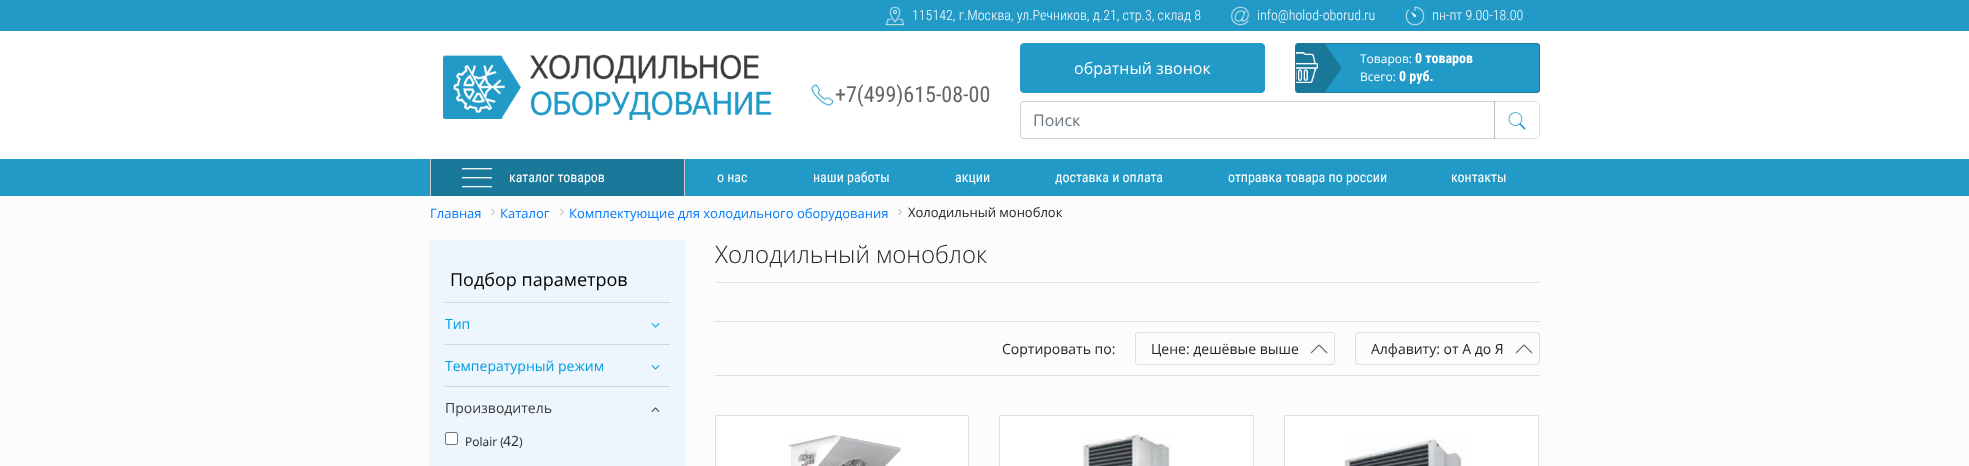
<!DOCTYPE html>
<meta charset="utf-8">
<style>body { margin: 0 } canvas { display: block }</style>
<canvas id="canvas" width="1969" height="466"></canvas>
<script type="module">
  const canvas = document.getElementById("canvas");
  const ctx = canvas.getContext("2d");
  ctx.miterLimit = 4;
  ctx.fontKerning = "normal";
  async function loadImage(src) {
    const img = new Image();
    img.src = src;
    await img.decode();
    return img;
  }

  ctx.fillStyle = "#fcfcfc";
  ctx.fillRect(0, 0, 1969, 466);
  ctx.fillStyle = "#219ac7";
  ctx.fillRect(0, 0, 1969, 31);
  ctx.drawImage(await loadImage("img1.png"), 885, 6, 20, 20);
  ctx.font = "300 14px Roboto Condensed";
  ctx.fillStyle = "#ffffff";
  ctx.fillText("115142, г.Москва, ул.Речников, д.21, стр.3, склад 8", 912, 20);
  ctx.drawImage(await loadImage("img2.png"), 1230, 6, 20, 20);
  ctx.fillText("info@holod-oborud.ru", 1257, 20);
  ctx.drawImage(await loadImage("img3.png"), 1405, 6, 20, 20);
  ctx.fillText("пн-пт 9.00-18.00", 1432, 20);
  ctx.fillRect(0, 31, 1969, 128);
  ctx.drawImage(await loadImage("img4.png"), 443, 54, 329, 67);
  ctx.drawImage(await loadImage("img5.png"), 811, 84, 23, 23);
  ctx.font = "22px Roboto Condensed";
  ctx.fillStyle = "#666666";
  ctx.fillText("+7(499)615-08-00", 835, 102);
  ctx.fillStyle = "#219ac7";
  ctx.beginPath();
  ctx.roundRect(1020.5, 43.5, 244, 49, 3.5);
  ctx.fill();
  ctx.strokeStyle = "#219ac7";
  ctx.stroke();
  ctx.font = "16px Open Sans";
  ctx.fillStyle = "#ffffff";
  ctx.fillText("обратный звонок", 1074, 74);
  ctx.fillStyle = "#219ac7";
  ctx.beginPath();
  ctx.roundRect(1295.5, 43.5, 244, 49, 2.5);
  ctx.fill();
  ctx.strokeStyle = "#1a789b";
  ctx.stroke();
  ctx.fillStyle = "#1a789b";
  ctx.beginPath();
  ctx.roundRect(1296, 44, 29, 48, [2, 0, 0, 2]);
  ctx.fill();
  ctx.drawImage(await loadImage("img6.png"), 1296, 52, 22, 31);
  ctx.beginPath();
  ctx.moveTo(1325, 92);
  ctx.lineTo(1325, 44);
  ctx.lineTo(1341, 67);
  ctx.lineTo(1341, 69);
  ctx.closePath();
  ctx.fill();
  ctx.font = "12px Open Sans";
  ctx.fillStyle = "#ffffff";
  ctx.fillText("Товаров:", 1360, 63);
  ctx.font = "bold 14px Roboto Condensed";
  ctx.fillText("0 товаров", 1415, 63);
  ctx.font = "12px Open Sans";
  ctx.fillText("Всего:", 1360, 81);
  ctx.font = "bold 14px Roboto Condensed";
  ctx.fillText("0 руб.", 1399, 81);
  ctx.beginPath();
  ctx.roundRect(1020.5, 101.5, 474, 37, [3.5, 0, 0, 3.5]);
  ctx.strokeStyle = "#ced4da";
  ctx.stroke();
  ctx.font = "16px Open Sans";
  ctx.fillStyle = "#6c757d";
  ctx.fillText("Поиск", 1033, 126);
  ctx.beginPath();
  ctx.roundRect(1494.5, 101.5, 45, 37, [0, 3.5, 3.5, 0]);
  ctx.strokeStyle = "rgba(0, 0, 0, 0.12)";
  ctx.stroke();
  ctx.drawImage(await loadImage("img7.png"), 1508, 112, 18, 18);
  ctx.fillStyle = "#219ac7";
  ctx.fillRect(0, 159, 1969, 37);
  ctx.fillStyle = "#cccccc";
  ctx.fillRect(684, 159, 1, 37);
  ctx.fillRect(430, 159, 1, 37);
  ctx.fillStyle = "#1a789b";
  ctx.fillRect(431, 159, 253, 37);
  ctx.drawImage(await loadImage("img8.png"), 462, 168, 30, 20);
  ctx.font = "14px Roboto Condensed";
  ctx.fillStyle = "#ffffff";
  ctx.fillText("каталог товаров", 509, 182);
  ctx.fillText("о нас", 717, 182);
  ctx.fillText("наши работы", 813, 182);
  ctx.fillText("акции", 955, 182);
  ctx.fillText("доставка и оплата", 1055, 182);
  ctx.fillText("отправка товара по россии", 1228, 182);
  ctx.fillText("контакты", 1451, 182);
  ctx.font = "13px Open Sans";
  ctx.fillStyle = "#007bff";
  ctx.fillText("Главная", 430, 218);
  ctx.drawImage(await loadImage("img9.png"), 491, 208, 4, 8);
  ctx.fillText("Каталог", 500, 218);
  ctx.drawImage(await loadImage("img9.png"), 560, 208, 4, 8);
  ctx.fillText("Комплектующие для холодильного оборудования", 569, 218);
  ctx.drawImage(await loadImage("img9.png"), 898, 208, 4, 8);
  ctx.fillStyle = "#212529";
  ctx.fillText("Холодильный моноблок", 908, 217);
  ctx.fillStyle = "#edf6fc";
  ctx.fillRect(430, 240, 255, 226);
  ctx.font = "18px Open Sans";
  ctx.fillStyle = "#000000";
  ctx.fillText("Подбор параметров", 450, 286);
  ctx.fillStyle = "#cfd7dd";
  ctx.fillRect(445, 302, 225, 1);
  ctx.font = "14px Open Sans";
  ctx.fillStyle = "#039be5";
  ctx.fillText("Тип", 445, 329);
  ctx.drawImage(await loadImage("img10.png"), 651, 323, 9, 5);
  ctx.fillStyle = "#cfd7dd";
  ctx.fillRect(445, 344, 225, 1);
  ctx.fillStyle = "#039be5";
  ctx.fillText("Температурный режим", 445, 371);
  ctx.drawImage(await loadImage("img10.png"), 651, 365, 9, 5);
  ctx.fillStyle = "#cfd7dd";
  ctx.fillRect(445, 386, 225, 1);
  ctx.fillStyle = "#3e3d40";
  ctx.fillText("Производитель", 445, 413);
  ctx.drawImage(await loadImage("img11.png"), 651, 407, 9, 5);
  ctx.fillStyle = "#ffffff";
  ctx.beginPath();
  ctx.roundRect(445.5, 432.5, 12, 12, 1.5);
  ctx.fill();
  ctx.strokeStyle = "#767676";
  ctx.stroke();
  ctx.font = "12px Open Sans";
  ctx.fillStyle = "#212529";
  ctx.fillText("Polair (", 465, 446);
  ctx.font = "14px Open Sans";
  ctx.fillText("42", 503, 446);
  ctx.font = "12px Open Sans";
  ctx.fillText(")", 519, 446);
  ctx.fillStyle = "#e5e5e5";
  ctx.fillRect(715, 282, 825, 1);
  ctx.font = "300 24px Open Sans";
  ctx.fillStyle = "#212529";
  ctx.fillText("Холодильный моноблок", 715, 263);
  ctx.fillStyle = "#dddddd";
  ctx.fillRect(715, 321, 825, 1);
  ctx.fillRect(715, 375, 825, 1);
  ctx.font = "14px Open Sans";
  ctx.fillStyle = "#212529";
  ctx.fillText("Сортировать по:", 1002, 354);
  ctx.beginPath();
  ctx.roundRect(1135.5, 332.5, 199, 32, 2.5);
  ctx.strokeStyle = "#dddddd";
  ctx.stroke();
  ctx.fillText("Цене: дешёвые выше", 1151, 354);
  ctx.drawImage(await loadImage("img12.png"), 1310, 344, 18, 10);
  ctx.beginPath();
  ctx.roundRect(1355.5, 332.5, 184, 32, 2.5);
  ctx.stroke();
  ctx.fillText("Алфавиту: от А до Я", 1371, 354);
  ctx.drawImage(await loadImage("img12.png"), 1515, 344, 18, 10);
  ctx.fillStyle = "#ffffff";
  ctx.beginPath();
  ctx.rect(715.5, 415.5, 253, 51);
  ctx.fill();
  ctx.strokeStyle = "#dfdfdf";
  ctx.stroke();
  ctx.drawImage(await loadImage("img13.png"), 788, 432, 115, 34);
  ctx.beginPath();
  ctx.rect(999.5, 415.5, 254, 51);
  ctx.fill();
  ctx.stroke();
  ctx.drawImage(await loadImage("img14.png"), 1081, 432, 91, 34);
  ctx.beginPath();
  ctx.rect(1284.5, 415.5, 254, 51);
  ctx.fill();
  ctx.stroke();
  ctx.drawImage(await loadImage("img15.png"), 1344, 435, 122, 31);
</script>
